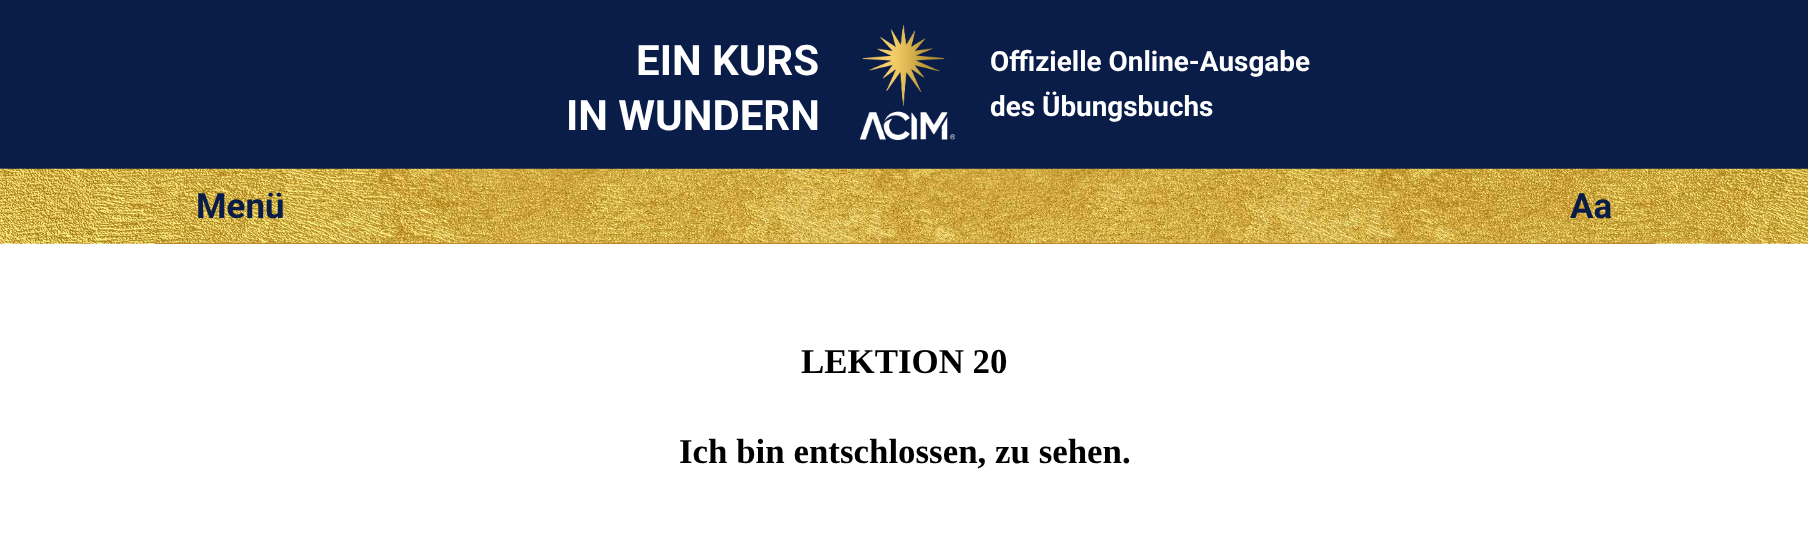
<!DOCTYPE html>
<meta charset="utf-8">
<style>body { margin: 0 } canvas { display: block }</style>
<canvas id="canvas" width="1808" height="558"></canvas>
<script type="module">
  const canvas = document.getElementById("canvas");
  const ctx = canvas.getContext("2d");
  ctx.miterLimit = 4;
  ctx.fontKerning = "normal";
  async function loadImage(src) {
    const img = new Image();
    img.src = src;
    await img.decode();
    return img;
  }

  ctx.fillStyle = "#ffffff";
  ctx.fillRect(0, 0, 1808, 558);
  ctx.fillStyle = "#091d48";
  ctx.fillRect(0, 0, 1808, 169);
  ctx.font = "bold 42px Roboto";
  ctx.fillStyle = "#ffffff";
  ctx.fillText("EIN KURS", 636, 75);
  ctx.fillText("IN WUNDERN", 566, 130);
  ctx.drawImage(await loadImage("img1.png"), 859, 25, 96, 115);
  ctx.font = "bold 27.9px Roboto";
  ctx.fillText("Offizielle Online-Ausgabe", 990, 71);
  ctx.fillText("des Übungsbuchs", 990, 116);
  ctx.drawImage(await loadImage("img2.png"), 0, 168, 1808, 76);
  ctx.fillStyle = "#bf8731";
  ctx.fillRect(155, 243, 1500, 1);
  ctx.font = "bold 34.9px Roboto";
  ctx.fillStyle = "#091d48";
  ctx.fillText("Menü", 196, 218);
  ctx.fillText("Aa", 1570, 218);
  ctx.font = "bold 34.9px Liberation Serif";
  ctx.fillStyle = "#000000";
  ctx.fillText("LEKTION 20", 801, 373);
  ctx.fillText("Ich bin entschlossen, zu sehen.", 679, 463);
</script>
